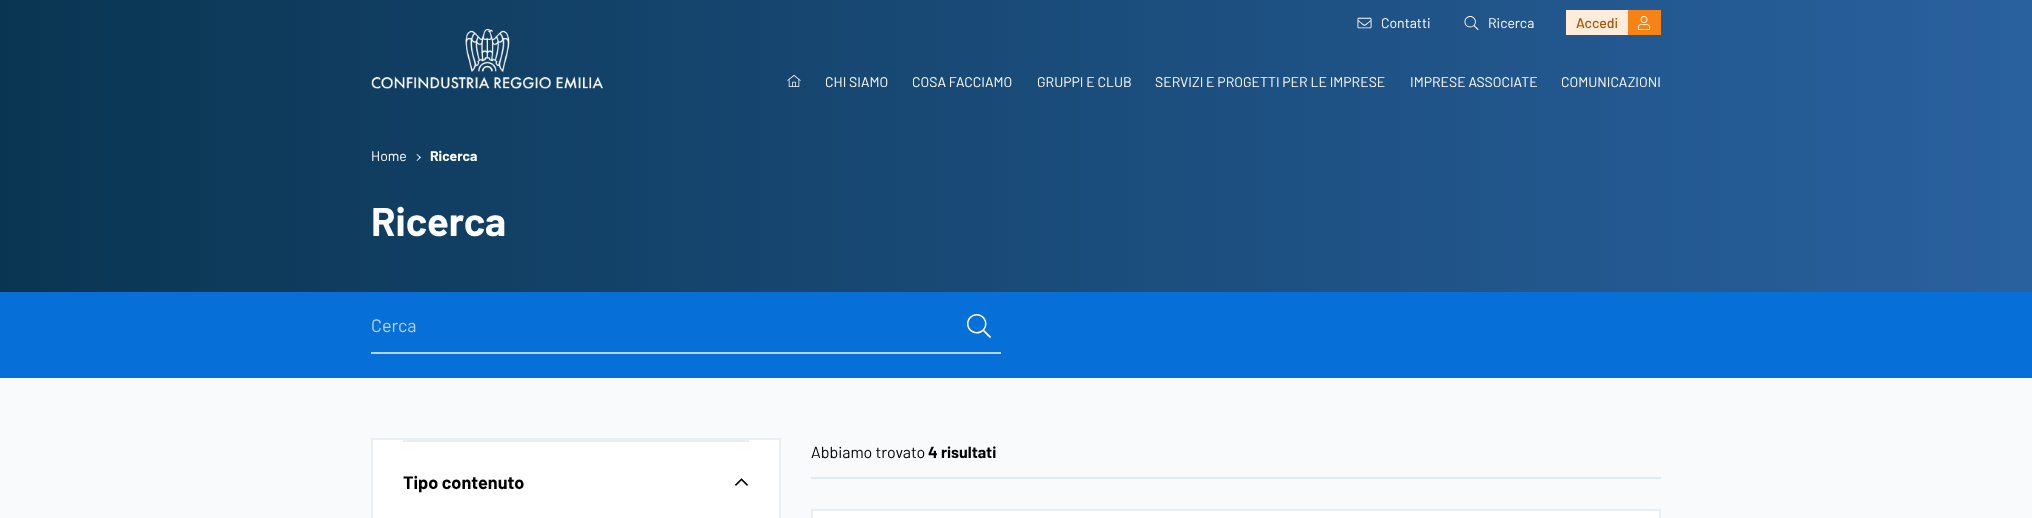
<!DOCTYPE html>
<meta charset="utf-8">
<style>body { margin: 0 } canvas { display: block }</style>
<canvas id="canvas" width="2032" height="518"></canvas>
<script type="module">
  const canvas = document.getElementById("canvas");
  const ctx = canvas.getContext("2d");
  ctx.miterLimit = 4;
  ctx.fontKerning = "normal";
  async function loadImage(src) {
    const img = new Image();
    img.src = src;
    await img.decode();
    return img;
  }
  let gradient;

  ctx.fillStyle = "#f8fafb";
  ctx.fillRect(0, 0, 2032, 518);
  gradient = ctx.createLinearGradient(0, 146, 2032, 146);
  gradient.addColorStop(0, "#0a3552");
  gradient.addColorStop(1, "#29619f");
  ctx.fillStyle = gradient;
  ctx.fillRect(0, 0, 2032, 292);
  ctx.drawImage(await loadImage("img1.png"), 371, 29, 232, 60);
  ctx.drawImage(await loadImage("img2.png"), 1357, 17, 15, 12);
  ctx.font = "14px Barlow";
  ctx.fillStyle = "#ffffff";
  ctx.fillText("Contatti", 1381, 28);
  ctx.drawImage(await loadImage("img3.png"), 1464, 16, 15, 14);
  ctx.fillText("Ricerca", 1488, 28);
  ctx.fillStyle = "#f78215";
  ctx.fillRect(1628, 10, 33, 25);
  ctx.fillStyle = "#ffecda";
  ctx.fillRect(1566, 10, 62, 25);
  ctx.font = "500 14px Barlow";
  ctx.fillStyle = "#a85202";
  ctx.fillText("Accedi", 1576, 28);
  ctx.drawImage(await loadImage("img4.png"), 1637, 16, 14, 14);
  ctx.drawImage(await loadImage("img5.png"), 787, 75, 14, 12);
  ctx.font = "14px Barlow";
  ctx.fillStyle = "#ffffff";
  ctx.fillText("CHI SIAMO", 825, 87);
  ctx.fillText("COSA FACCIAMO", 912, 87);
  ctx.fillText("GRUPPI E CLUB", 1037, 87);
  ctx.fillText("SERVIZI E PROGETTI PER LE IMPRESE", 1155, 87);
  ctx.fillText("IMPRESE ASSOCIATE", 1410, 87);
  ctx.fillText("COMUNICAZIONI", 1561, 87);
  ctx.fillText("Home", 371, 161);
  ctx.beginPath();
  ctx.moveTo(416.5, 154.5);
  ctx.lineTo(417, 154);
  ctx.lineTo(421, 157.5);
  ctx.lineTo(420, 158);
  ctx.closePath();
  ctx.fill();
  ctx.beginPath();
  ctx.moveTo(416.5, 160.5);
  ctx.lineTo(420, 157);
  ctx.lineTo(421, 157.5);
  ctx.lineTo(417, 161);
  ctx.closePath();
  ctx.fill();
  ctx.font = "bold 14px Barlow";
  ctx.fillText("Ricerca", 430, 161);
  ctx.font = "bold 40px Barlow";
  ctx.fillText("Ricerca", 371, 236);
  ctx.fillStyle = "#0770d8";
  ctx.fillRect(0, 292, 2032, 86);
  ctx.fillStyle = "#b5d4f3";
  ctx.fillRect(371, 352, 630, 2);
  ctx.font = "18px Barlow";
  ctx.fillText("Cerca", 371, 332);
  ctx.drawImage(await loadImage("img6.png"), 967, 314, 24, 24);
  ctx.fillStyle = "#e1e9f1";
  ctx.fillRect(811, 477, 850, 2);
  ctx.font = "16px Barlow";
  ctx.fillStyle = "#000000";
  ctx.fillText("Abbiamo trovato", 811, 458);
  ctx.font = "bold 16px Barlow";
  ctx.fillText("4 risultati", 928, 458);
  ctx.fillStyle = "#ffffff";
  ctx.beginPath();
  ctx.rect(812, 510, 848, 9);
  ctx.fill();
  ctx.strokeStyle = "#e7eef4";
  ctx.lineWidth = 2;
  ctx.stroke();
  ctx.beginPath();
  ctx.rect(372, 439, 408, 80);
  ctx.fill();
  ctx.stroke();
  ctx.fillStyle = "#e7eef4";
  ctx.fillRect(403, 440, 346, 2);
  ctx.font = "bold 18px Barlow";
  ctx.fillStyle = "#000000";
  ctx.fillText("Tipo contenuto", 403, 489);
  ctx.drawImage(await loadImage("img7.png"), 735, 478, 13, 8);
</script>
